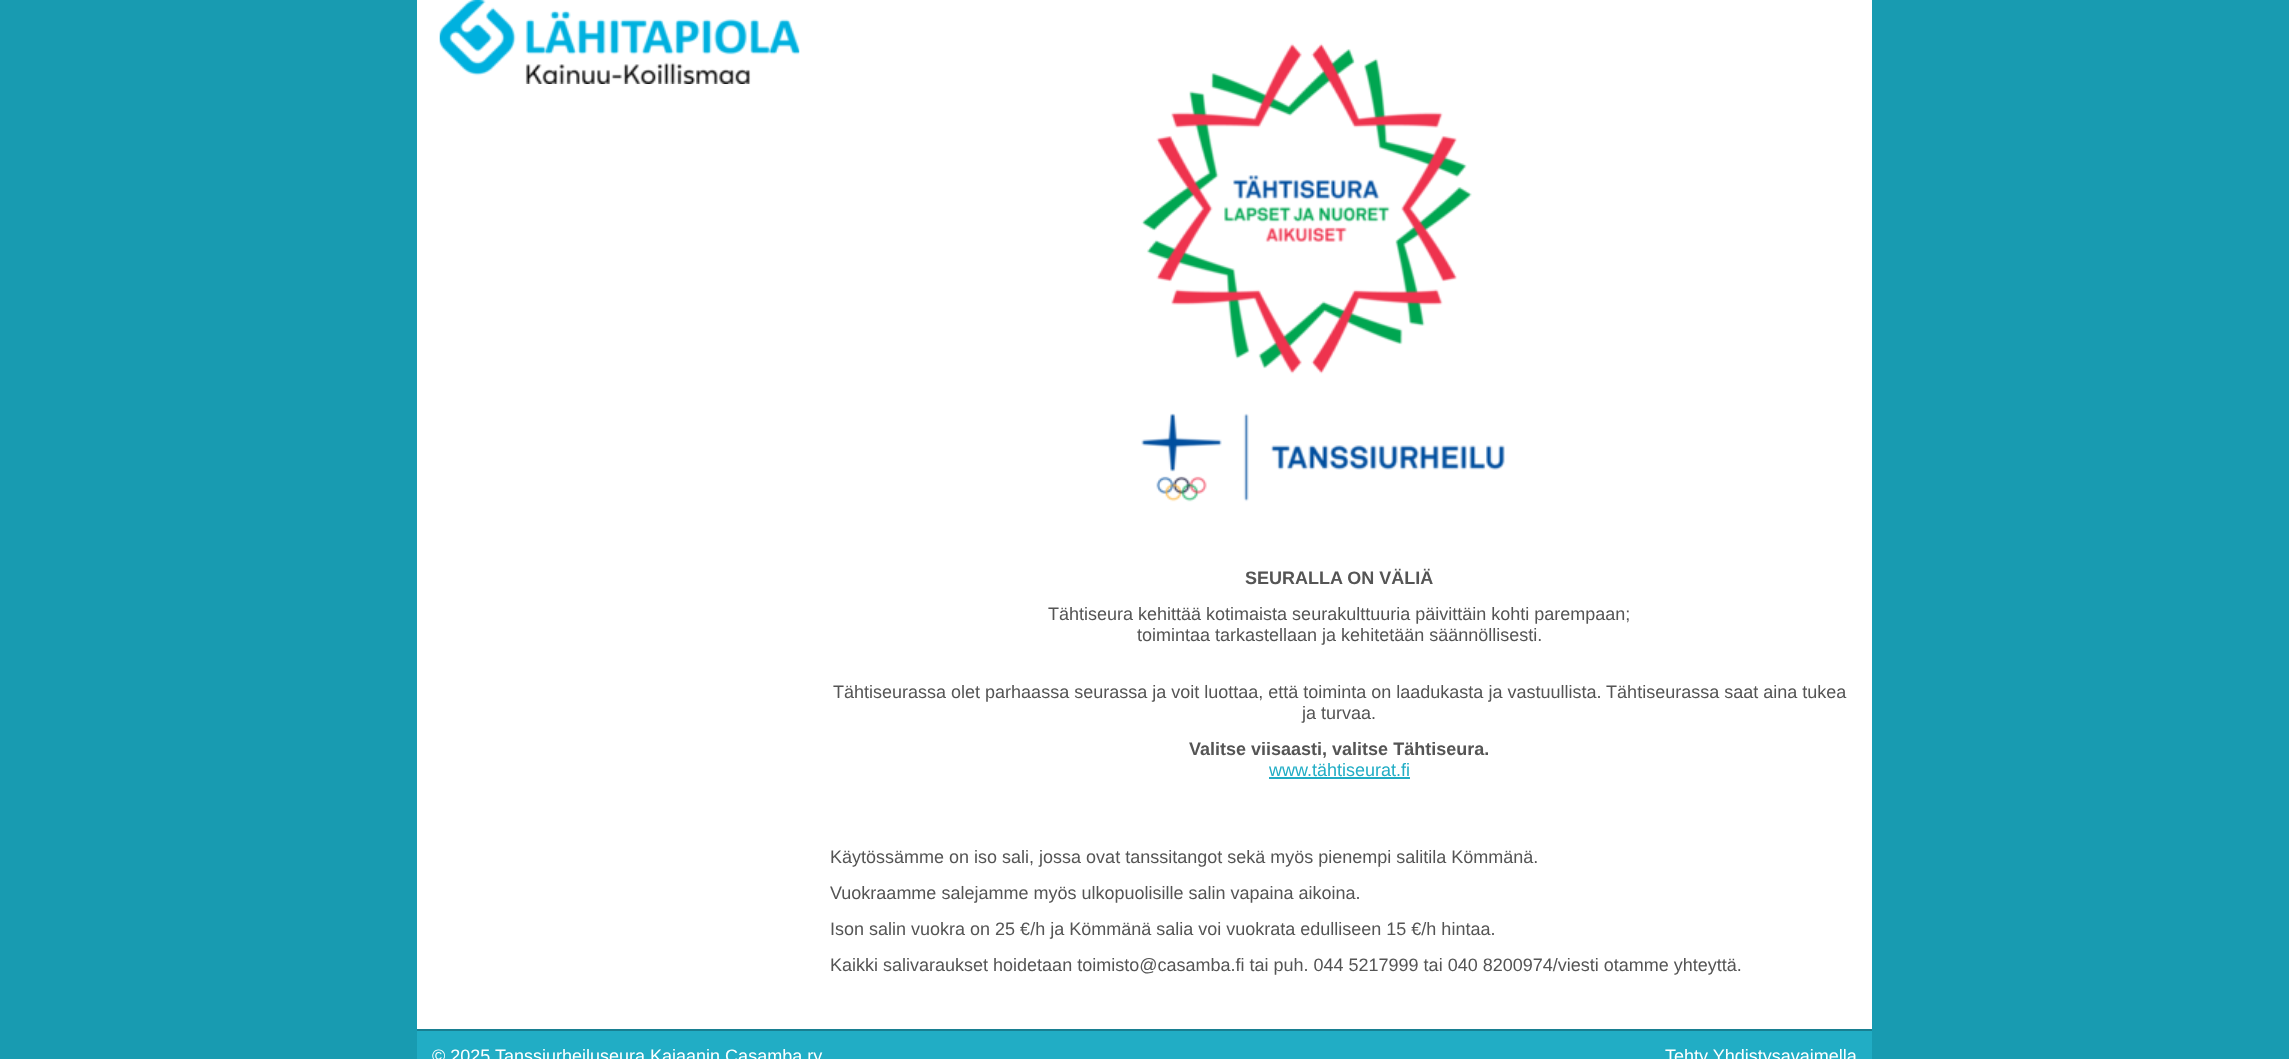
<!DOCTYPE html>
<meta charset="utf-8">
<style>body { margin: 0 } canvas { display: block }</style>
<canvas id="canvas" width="2289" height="1059"></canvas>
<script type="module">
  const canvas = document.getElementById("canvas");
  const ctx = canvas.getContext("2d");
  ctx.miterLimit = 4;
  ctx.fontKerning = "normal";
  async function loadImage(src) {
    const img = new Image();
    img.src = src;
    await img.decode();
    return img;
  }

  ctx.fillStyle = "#189bb1";
  ctx.fillRect(0, 0, 2289, 1059);
  ctx.fillStyle = "#ffffff";
  ctx.fillRect(417, 0, 1455, 1029);
  ctx.drawImage(await loadImage("img1.png"), 439, 0, 361, 84);
  ctx.drawImage(await loadImage("img2.png"), 1141, 43, 364, 459);
  ctx.font = "bold 18px Liberation Sans";
  ctx.fillStyle = "#555555";
  ctx.fillText("SEURALLA ON VÄLIÄ", 1245, 584);
  ctx.font = "18px Liberation Sans";
  ctx.fillText("Tähtiseura kehittää kotimaista seurakulttuuria päivittäin kohti parempaan;", 1048, 620);
  ctx.fillText("toimintaa tarkastellaan ja kehitetään säännöllisesti.", 1137, 641);
  ctx.fillText("Tähtiseurassa olet parhaassa seurassa ja voit luottaa, että toiminta on laadukasta ja vastuullista. Tähtiseurassa saat aina tukea", 833, 698);
  ctx.fillText("ja turvaa.", 1302, 719);
  ctx.font = "bold 18px Liberation Sans";
  ctx.fillText("Valitse viisaasti, valitse Tähtiseura.", 1189, 755);
  ctx.font = "18px Liberation Sans";
  ctx.fillStyle = "#21adc5";
  ctx.fillText("www.tähtiseurat.fi", 1269, 776);
  ctx.fillRect(1269, 777, 141, 2);
  ctx.fillStyle = "#555555";
  ctx.fillText("Käytössämme on iso sali, jossa ovat tanssitangot sekä myös pienempi salitila Kömmänä.", 830, 863);
  ctx.fillText("Vuokraamme salejamme myös ulkopuolisille salin vapaina aikoina.", 830, 899);
  ctx.fillText("Ison salin vuokra on 25 €/h ja Kömmänä salia voi vuokrata edulliseen 15 €/h hintaa.", 830, 935);
  ctx.fillText("Kaikki salivaraukset hoidetaan toimisto@casamba.fi tai puh. 044 5217999 tai 040 8200974/viesti otamme yhteyttä.", 830, 971);
  ctx.fillStyle = "#21adc5";
  ctx.fillRect(417, 1031, 1455, 28);
  ctx.fillStyle = "#187f91";
  ctx.fillRect(417, 1029, 1455, 2);
  ctx.fillStyle = "#ffffff";
  ctx.fillText("© 2025 Tanssiurheiluseura Kajaanin Casamba ry", 432, 1062);
  ctx.fillText("Tehty Yhdistysavaimella", 1665, 1062);
</script>
